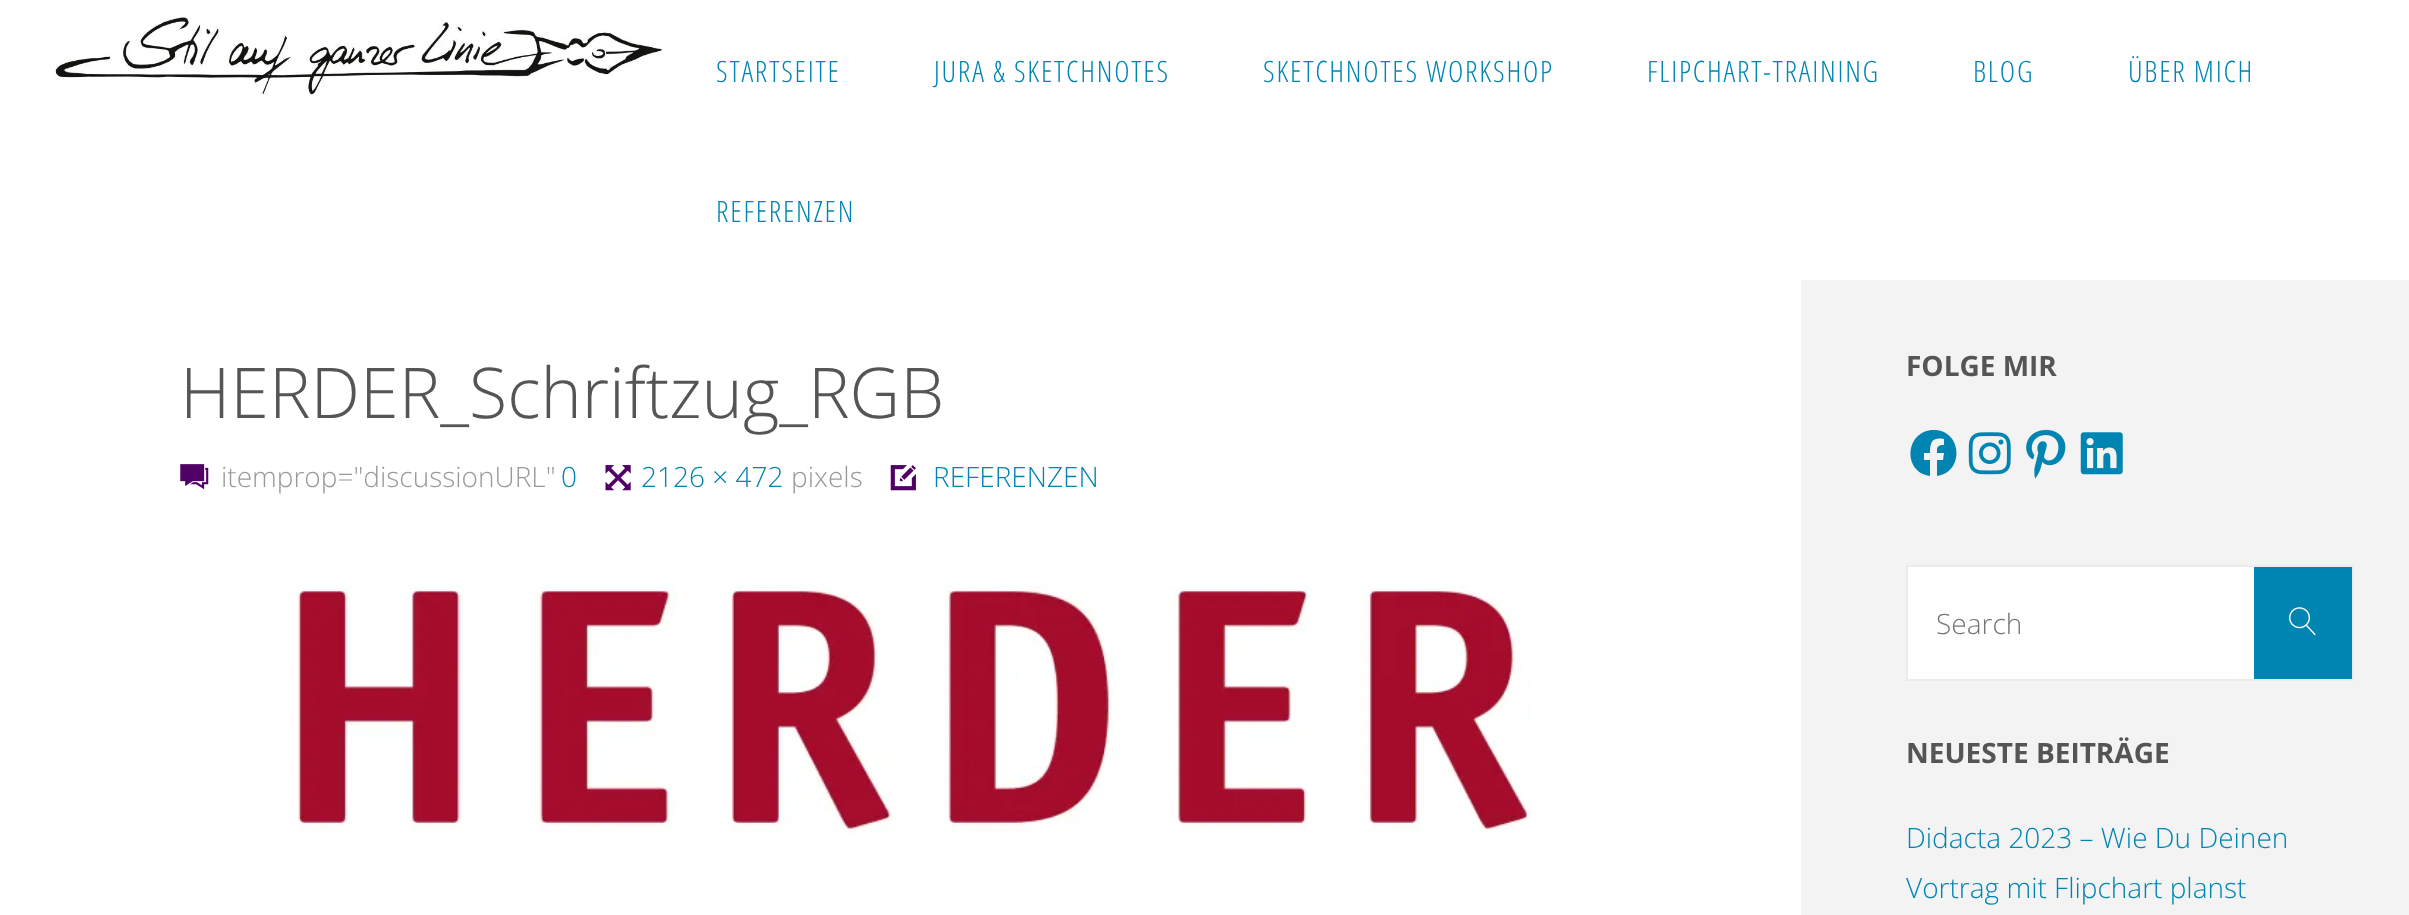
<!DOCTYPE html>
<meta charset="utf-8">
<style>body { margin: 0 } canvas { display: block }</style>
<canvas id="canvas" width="2409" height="915"></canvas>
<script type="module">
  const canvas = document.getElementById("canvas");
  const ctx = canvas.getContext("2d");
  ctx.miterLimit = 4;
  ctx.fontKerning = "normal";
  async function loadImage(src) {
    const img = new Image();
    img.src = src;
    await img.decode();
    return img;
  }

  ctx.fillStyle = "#f3f3f3";
  ctx.fillRect(0, 0, 2409, 915);
  ctx.fillStyle = "#ffffff";
  ctx.fillRect(0, 0, 2409, 280);
  ctx.drawImage(await loadImage("img1.png"), 54, 14, 609, 81);
  ctx.letterSpacing = "1.75px";
  ctx.font = "300 29.5px Open Sans Condensed";
  ctx.fillStyle = "#0085b2";
  ctx.fillText("STARTSEITE", 716, 82);
  ctx.fillText("JURA & SKETCHNOTES", 934, 82);
  ctx.fillText("SKETCHNOTES WORKSHOP", 1263, 82);
  ctx.fillText("FLIPCHART-TRAINING", 1647, 82);
  ctx.fillText("BLOG", 1973, 82);
  ctx.fillText("ÜBER MICH", 2128, 82);
  ctx.fillText("REFERENZEN", 716, 222);
  ctx.fillStyle = "#ffffff";
  ctx.fillRect(0, 280, 1801, 635);
  ctx.letterSpacing = "0px";
  ctx.font = "300 70px Open Sans";
  ctx.fillStyle = "#555555";
  ctx.fillText("HERDER_Schriftzug_RGB", 180, 418);
  ctx.drawImage(await loadImage("img2.png"), 180, 464, 29, 26);
  ctx.font = "300 28px Open Sans";
  ctx.fillStyle = "#9a9a9a";
  ctx.fillText("itemprop=\"discussionURL\"", 221, 487);
  ctx.fillStyle = "#0085b2";
  ctx.fillText("0", 561, 487);
  ctx.drawImage(await loadImage("img3.png"), 605, 465, 26, 26);
  ctx.fillText("2126 × 472", 641, 487);
  ctx.fillStyle = "#9a9a9a";
  ctx.fillText("pixels", 791, 487);
  ctx.drawImage(await loadImage("img4.png"), 890, 465, 26, 26);
  ctx.fillStyle = "#0085b2";
  ctx.fillText("REFERENZEN", 933, 487);
  ctx.drawImage(await loadImage("img5.png"), 294, 585, 1238, 248);
  ctx.font = "bold 28px Open Sans";
  ctx.fillStyle = "#555555";
  ctx.fillText("FOLGE MIR", 1906, 376);
  ctx.fillStyle = "#0085b2";
  ctx.beginPath();
  ctx.moveTo(1934, 430);
  ctx.bezierCurveTo(1905, 430, 1902, 472, 1930, 476);
  ctx.lineTo(1930, 460);
  ctx.lineTo(1924, 460);
  ctx.lineTo(1924, 453);
  ctx.lineTo(1930, 453);
  ctx.bezierCurveTo(1930, 442, 1932, 437, 1944, 439);
  ctx.lineTo(1944, 445);
  ctx.bezierCurveTo(1937, 445, 1937, 447, 1937, 453);
  ctx.lineTo(1944, 453);
  ctx.lineTo(1943, 460);
  ctx.lineTo(1937, 460);
  ctx.lineTo(1937, 476);
  ctx.bezierCurveTo(1965, 472, 1962, 430, 1934, 430);
  ctx.closePath();
  ctx.fill();
  ctx.drawImage(await loadImage("img6.png"), 1968, 432, 43, 43);
  ctx.drawImage(await loadImage("img7.png"), 2026, 429, 40, 50);
  ctx.drawImage(await loadImage("img8.png"), 2080, 432, 43, 43);
  ctx.fillStyle = "#ffffff";
  ctx.fillRect(1908, 567, 346, 112);
  ctx.strokeStyle = "#ebebeb";
  ctx.lineWidth = 2;
  ctx.strokeRect(1907, 566, 446, 114);
  ctx.fillStyle = "#0085b2";
  ctx.fillRect(2254, 567, 98, 112);
  ctx.font = "300 28px Open Sans";
  ctx.fillStyle = "#757575";
  ctx.fillText("Search", 1936, 634);
  ctx.drawImage(await loadImage("img9.png"), 2289, 607, 27, 29);
  ctx.font = "bold 28px Open Sans";
  ctx.fillStyle = "#555555";
  ctx.fillText("NEUESTE BEITRÄGE", 1906, 763);
  ctx.font = "300 28px Open Sans";
  ctx.fillStyle = "#0085b2";
  ctx.fillText("Didacta 2023 – Wie Du Deinen", 1906, 848);
  ctx.fillText("Vortrag mit Flipchart planst", 1906, 898);
</script>
